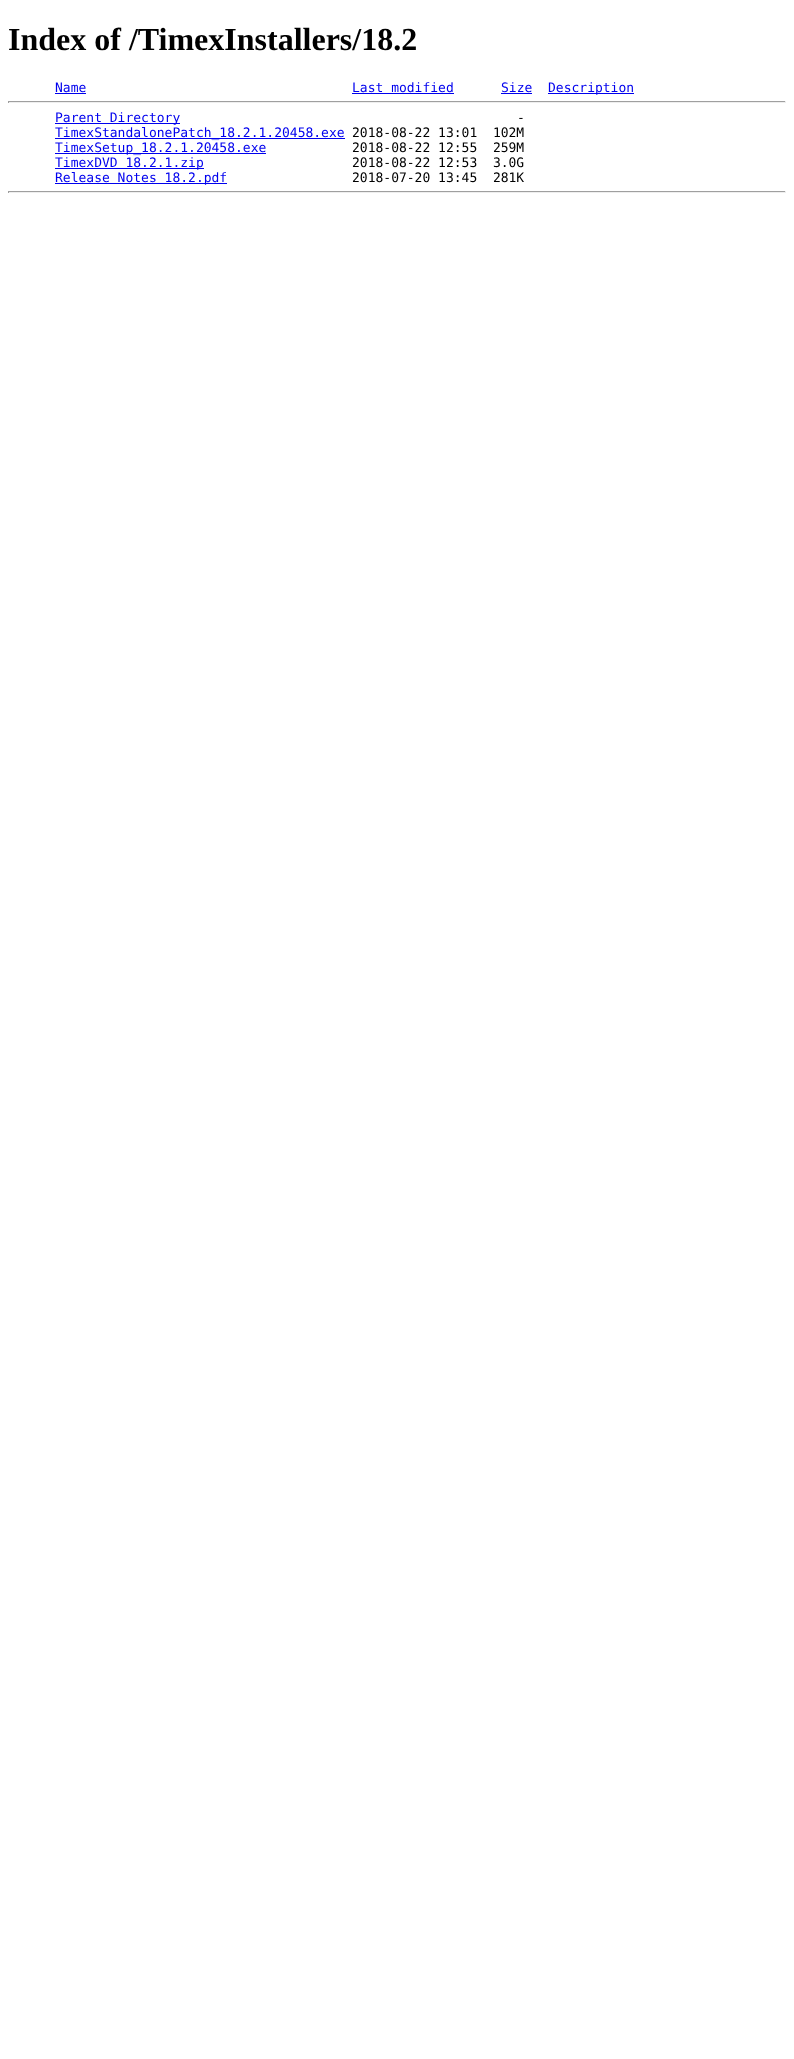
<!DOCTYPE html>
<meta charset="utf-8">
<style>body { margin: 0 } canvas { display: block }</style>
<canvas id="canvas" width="794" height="2059"></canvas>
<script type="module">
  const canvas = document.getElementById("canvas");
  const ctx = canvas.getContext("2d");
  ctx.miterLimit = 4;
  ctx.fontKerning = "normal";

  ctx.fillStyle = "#ffffff";
  ctx.fillRect(0, 0, 794, 2059);
  ctx.font = "bold 32px Liberation Serif";
  ctx.fillStyle = "#000000";
  ctx.fillText("Index of /TimexInstallers/18.2", 8, 50);
  ctx.font = "13px DejaVu Sans Mono";
  ctx.fillStyle = "#0000ee";
  ctx.fillText("Name", 55, 92);
  ctx.fillRect(55, 93, 31, 1);
  ctx.fillText("Last modified", 352, 92);
  ctx.fillRect(352, 93, 102, 1);
  ctx.fillText("Size", 501, 92);
  ctx.fillRect(501, 93, 31, 1);
  ctx.fillRect(548, 93, 86, 1);
  ctx.fillText("Description", 548, 92);
  ctx.fillStyle = "#9f9f9f";
  ctx.fillRect(8, 101, 778, 1);
  ctx.fillStyle = "#eeeeee";
  ctx.fillRect(785, 101, 1, 2);
  ctx.fillRect(8, 102, 778, 1);
  ctx.fillStyle = "#9f9f9f";
  ctx.fillRect(8, 101, 1, 2);
  ctx.fillStyle = "#0000ee";
  ctx.fillRect(55, 123, 125, 1);
  ctx.fillText("Parent Directory", 55, 122);
  ctx.fillStyle = "#000000";
  ctx.fillText("-", 517, 122);
  ctx.fillStyle = "#0000ee";
  ctx.fillRect(55, 138, 290, 1);
  ctx.fillText("TimexStandalonePatch_18.2.1.20458.exe", 55, 137);
  ctx.fillStyle = "#000000";
  ctx.fillText("2018-08-22 13:01  102M", 352, 137);
  ctx.fillStyle = "#0000ee";
  ctx.fillRect(55, 153, 211, 1);
  ctx.fillText("TimexSetup_18.2.1.20458.exe", 55, 152);
  ctx.fillStyle = "#000000";
  ctx.fillText("2018-08-22 12:55  259M", 352, 152);
  ctx.fillStyle = "#0000ee";
  ctx.fillRect(55, 168, 149, 1);
  ctx.fillText("TimexDVD 18.2.1.zip", 55, 167);
  ctx.fillStyle = "#000000";
  ctx.fillText("2018-08-22 12:53  3.0G", 352, 167);
  ctx.fillStyle = "#0000ee";
  ctx.fillRect(55, 183, 172, 1);
  ctx.fillText("Release Notes 18.2.pdf", 55, 182);
  ctx.fillStyle = "#000000";
  ctx.fillText("2018-07-20 13:45  281K", 352, 182);
  ctx.fillStyle = "#9f9f9f";
  ctx.fillRect(8, 191, 778, 1);
  ctx.fillStyle = "#eeeeee";
  ctx.fillRect(785, 191, 1, 2);
  ctx.fillRect(8, 192, 778, 1);
  ctx.fillStyle = "#9f9f9f";
  ctx.fillRect(8, 191, 1, 2);
</script>
